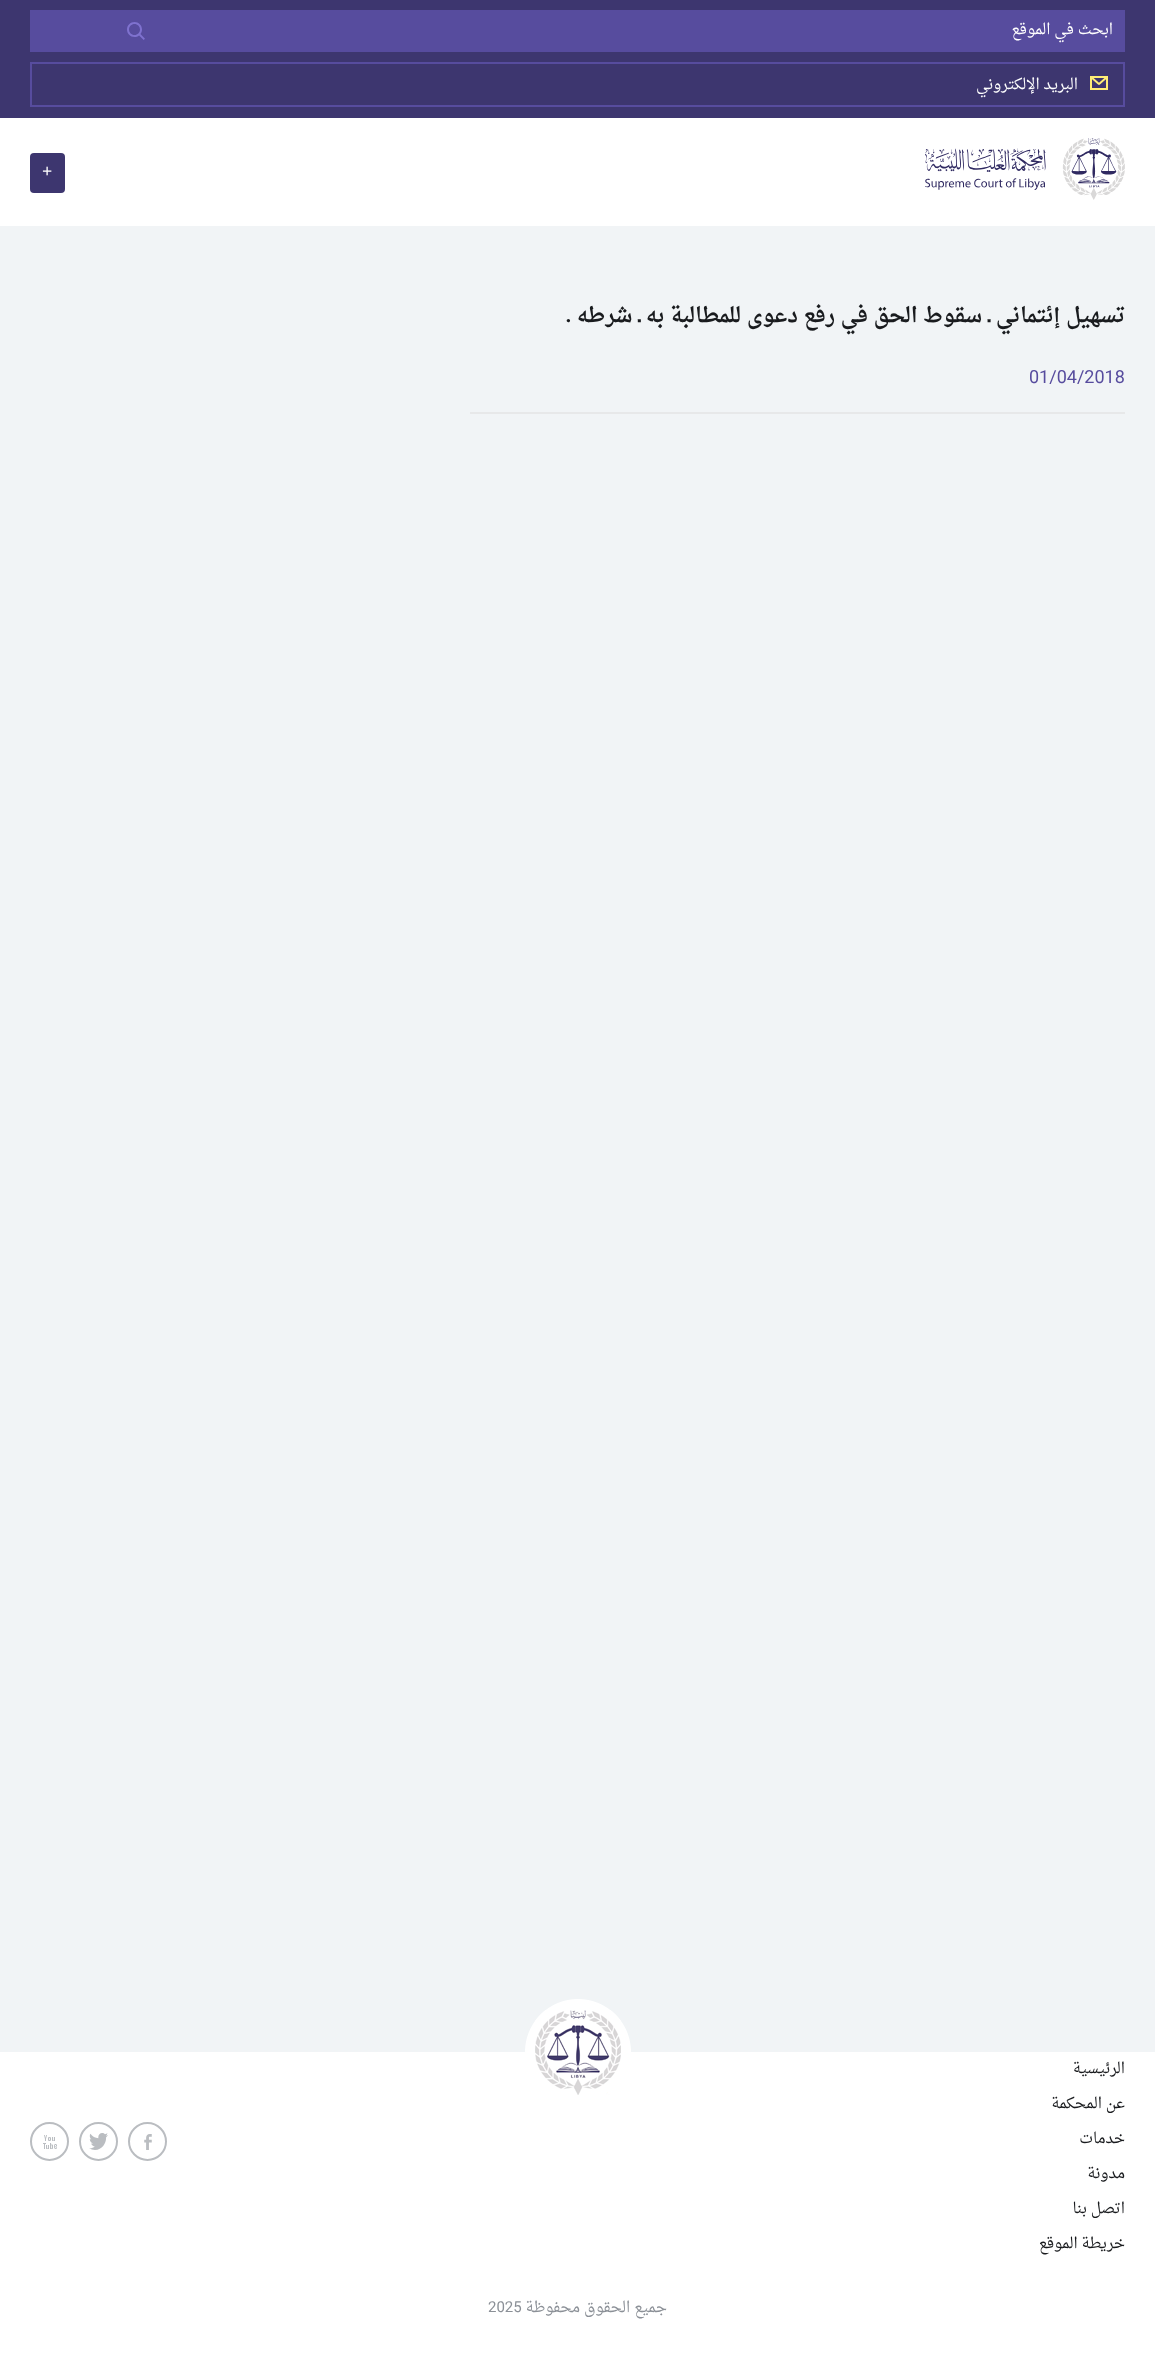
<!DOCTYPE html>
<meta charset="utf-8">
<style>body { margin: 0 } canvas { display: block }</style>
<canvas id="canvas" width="1155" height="2354"></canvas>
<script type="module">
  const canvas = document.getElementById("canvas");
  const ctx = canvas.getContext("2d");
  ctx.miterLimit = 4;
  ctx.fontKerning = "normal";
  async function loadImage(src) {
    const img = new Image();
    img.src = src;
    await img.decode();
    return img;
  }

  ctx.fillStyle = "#f1f4f6";
  ctx.fillRect(0, 0, 1155, 2354);
  ctx.fillStyle = "#ffffff";
  ctx.fillRect(0, 118, 1155, 108);
  ctx.fillStyle = "#3d366f";
  ctx.fillRect(0, 0, 1155, 118);
  ctx.fillStyle = "#574c9e";
  ctx.fillRect(30, 10, 1095, 42);
  ctx.direction = "rtl";
  ctx.font = "15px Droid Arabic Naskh";
  ctx.fillStyle = "#ffffff";
  ctx.fillText("ابحث في الموقع", 1113, 34);
  ctx.drawImage(await loadImage("img1.png"), 127, 22, 18, 18);
  ctx.strokeStyle = "#574c9e";
  ctx.lineWidth = 2;
  ctx.strokeRect(31, 63, 1093, 43);
  ctx.drawImage(await loadImage("img2.png"), 1090, 76, 18, 14);
  ctx.fillText("البريد الإلكتروني", 1078, 89);
  ctx.drawImage(await loadImage("img3.png"), 925, 138, 200, 62);
  ctx.fillStyle = "#3d366f";
  ctx.beginPath();
  ctx.roundRect(30, 153, 35, 40, 4);
  ctx.fill();
  ctx.direction = "ltr";
  ctx.font = "bold 18px Liberation Serif";
  ctx.fillStyle = "#ffffff";
  ctx.fillText("+", 42, 177);
  ctx.fillStyle = "#e7e8e9";
  ctx.fillRect(470, 412, 655, 2);
  ctx.direction = "rtl";
  ctx.font = "bold 21px Droid Arabic Naskh";
  ctx.fillStyle = "#191b1e";
  ctx.fillText("تسهيل إئتماني ـ سقوط الحق في رفع دعوى للمطالبة به ـ شرطه", 1125, 322);
  ctx.font = "bold 21px Liberation Serif";
  ctx.fillText(".", 571, 322);
  ctx.direction = "ltr";
  ctx.font = "18px Roboto";
  ctx.fillStyle = "#574c9e";
  ctx.fillText("01/04/2018", 1029, 383);
  ctx.fillStyle = "#ffffff";
  ctx.fillRect(0, 2052, 1155, 302);
  ctx.drawImage(await loadImage("img4.png"), 525, 1999, 106, 96);
  ctx.direction = "rtl";
  ctx.font = "15px Droid Arabic Naskh";
  ctx.fillStyle = "#191b1e";
  ctx.fillText("الرئيسية", 1125, 2073);
  ctx.fillText("عن المحكمة", 1125, 2108);
  ctx.fillText("خدمات", 1125, 2143);
  ctx.fillText("مدونة", 1125, 2178);
  ctx.fillText("اتصل بنا", 1125, 2213);
  ctx.fillText("خريطة الموقع", 1125, 2248);
  ctx.beginPath();
  ctx.arc(147.5, 2141.5, 18.5, 0, Math.PI * 2);
  ctx.strokeStyle = "#babdc1";
  ctx.stroke();
  ctx.drawImage(await loadImage("img5.png"), 144, 2134, 8, 16);
  ctx.beginPath();
  ctx.arc(98.5, 2141.5, 18.5, 0, Math.PI * 2);
  ctx.stroke();
  ctx.drawImage(await loadImage("img6.png"), 89, 2133, 19, 17);
  ctx.beginPath();
  ctx.arc(49.5, 2141.5, 18.5, 0, Math.PI * 2);
  ctx.stroke();
  ctx.drawImage(await loadImage("img7.png"), 43, 2135, 14, 14);
  ctx.fillStyle = "#8b9097";
  ctx.fillText("جميع الحقوق محفوظة", 667, 2312);
  ctx.direction = "ltr";
  ctx.font = "15px Roboto";
  ctx.fillText("2025", 488, 2312);
</script>
